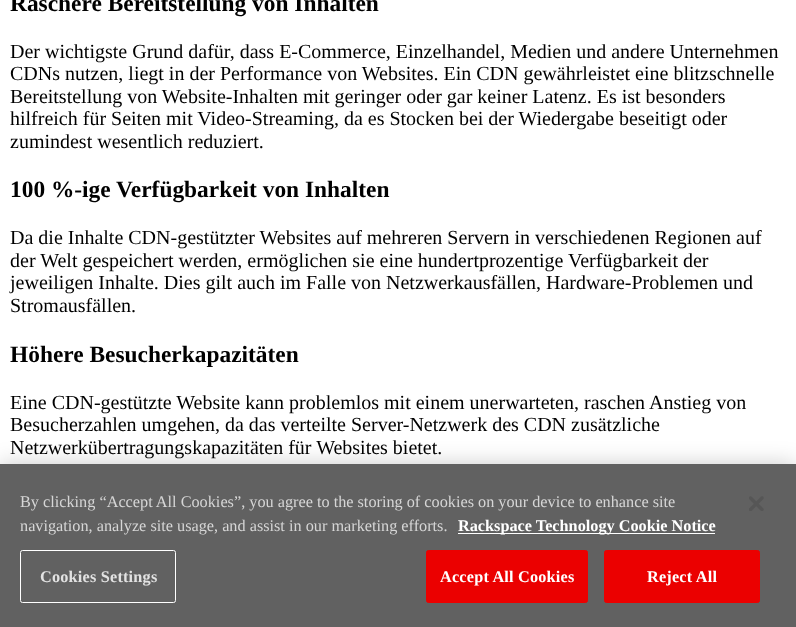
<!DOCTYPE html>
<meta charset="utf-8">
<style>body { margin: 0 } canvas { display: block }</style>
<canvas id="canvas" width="796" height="627"></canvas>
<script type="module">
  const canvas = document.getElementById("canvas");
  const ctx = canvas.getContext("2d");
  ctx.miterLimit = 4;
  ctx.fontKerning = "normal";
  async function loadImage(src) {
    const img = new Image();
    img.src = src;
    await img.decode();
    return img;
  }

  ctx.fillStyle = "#ffffff";
  ctx.fillRect(0, 0, 796, 627);
  ctx.font = "bold 23.4px Liberation Serif";
  ctx.fillStyle = "#000000";
  ctx.fillText("Raschere Bereitstellung von Inhalten", 10, 11);
  ctx.font = "20px Liberation Serif";
  ctx.fillText("Der wichtigste Grund dafür, dass E-Commerce, Einzelhandel, Medien und andere Unternehmen", 10, 58);
  ctx.fillText("CDNs nutzen, liegt in der Performance von Websites. Ein CDN gewährleistet eine blitzschnelle", 10, 80);
  ctx.fillText("Bereitstellung von Website-Inhalten mit geringer oder gar keiner Latenz. Es ist besonders", 10, 103);
  ctx.fillText("hilfreich für Seiten mit Video-Streaming, da es Stocken bei der Wiedergabe beseitigt oder", 10, 125);
  ctx.fillText("zumindest wesentlich reduziert.", 10, 148);
  ctx.font = "bold 23.4px Liberation Serif";
  ctx.fillText("100 %-ige Verfügbarkeit von Inhalten", 10, 197);
  ctx.font = "20px Liberation Serif";
  ctx.fillText("Da die Inhalte CDN-gestützter Websites auf mehreren Servern in verschiedenen Regionen auf", 10, 244);
  ctx.fillText("der Welt gespeichert werden, ermöglichen sie eine hundertprozentige Verfügbarkeit der", 10, 267);
  ctx.fillText("jeweiligen Inhalte. Dies gilt auch im Falle von Netzwerkausfällen, Hardware-Problemen und", 10, 289);
  ctx.fillText("Stromausfällen.", 10, 312);
  ctx.font = "bold 23.4px Liberation Serif";
  ctx.fillText("Höhere Besucherkapazitäten", 10, 362);
  ctx.font = "20px Liberation Serif";
  ctx.fillText("Eine CDN-gestützte Website kann problemlos mit einem unerwarteten, raschen Anstieg von", 10, 409);
  ctx.fillText("Besucherzahlen umgehen, da das verteilte Server-Netzwerk des CDN zusätzliche", 10, 431);
  ctx.fillText("Netzwerkübertragungskapazitäten für Websites bietet.", 10, 454);
  ctx.fillStyle = "rgba(0, 0, 0, 0.2)";
  ctx.filter = "blur(11px)";
  ctx.beginPath();
  ctx.rect(0, 464, 796, 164);
  ctx.fill();
  ctx.filter = "none";
  ctx.fillStyle = "#616161";
  ctx.fillRect(0, 464, 796, 163);
  ctx.font = "16.25px Liberation Serif";
  ctx.fillStyle = "#d6d6d6";
  ctx.fillText("By clicking “Accept All Cookies”, you agree to the storing of cookies on your device to enhance site", 20, 507);
  ctx.fillText("navigation, analyze site usage, and assist in our marketing efforts.", 20, 531);
  ctx.fillStyle = "#ffffff";
  ctx.fillRect(458, 533, 257, 1);
  ctx.font = "bold 16.25px Liberation Serif";
  ctx.fillText("Rackspace Technology Cookie Notice", 458, 531);
  ctx.beginPath();
  ctx.roundRect(20.5, 550.5, 155, 52, 2);
  ctx.strokeStyle = "#ffffff";
  ctx.stroke();
  ctx.letterSpacing = "0.2px";
  ctx.fillStyle = "#e2e2e2";
  ctx.fillText("Cookies Settings", 40, 582);
  ctx.fillStyle = "#eb0000";
  ctx.beginPath();
  ctx.roundRect(426.5, 550.5, 161, 52, 2);
  ctx.fill();
  ctx.strokeStyle = "#eb0000";
  ctx.stroke();
  ctx.fillStyle = "#ffffff";
  ctx.fillText("Accept All Cookies", 440, 582);
  ctx.fillStyle = "#eb0000";
  ctx.beginPath();
  ctx.roundRect(604.5, 550.5, 155, 52, 2);
  ctx.fill();
  ctx.stroke();
  ctx.fillStyle = "#ffffff";
  ctx.fillText("Reject All", 647, 582);
  ctx.drawImage(await loadImage("img1.png"), 749, 496, 15, 15);
</script>
